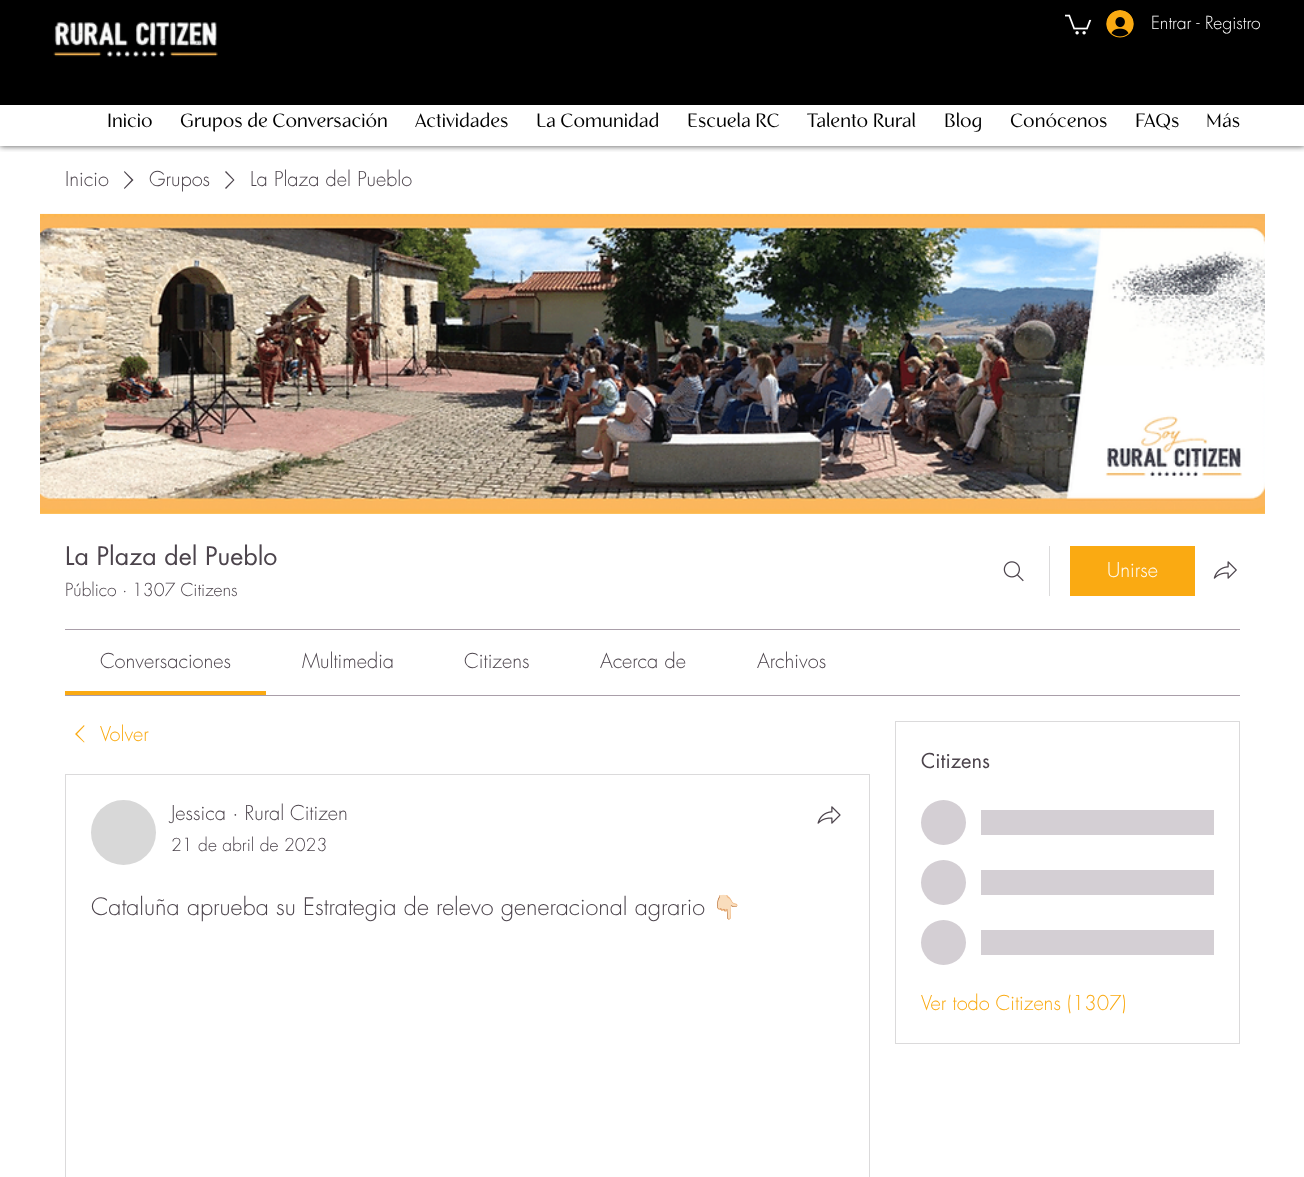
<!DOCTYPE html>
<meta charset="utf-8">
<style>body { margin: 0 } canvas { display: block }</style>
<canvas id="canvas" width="1304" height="1177"></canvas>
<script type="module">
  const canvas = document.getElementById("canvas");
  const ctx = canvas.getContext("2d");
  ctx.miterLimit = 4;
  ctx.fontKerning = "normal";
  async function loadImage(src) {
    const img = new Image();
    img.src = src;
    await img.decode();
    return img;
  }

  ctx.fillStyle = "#ffffff";
  ctx.fillRect(0, 0, 1304, 1177);
  ctx.save();
  ctx.beginPath();
  ctx.rect(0, 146, 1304, 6);
  ctx.clip();
  ctx.fillStyle = "rgba(0, 0, 0, 0.7)";
  ctx.filter = "blur(3px)";
  ctx.beginPath();
  ctx.rect(0, 0, 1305, 146);
  ctx.fill();
  ctx.filter = "none";
  ctx.restore();
  ctx.fillStyle = "#000000";
  ctx.fillRect(0, 0, 1304, 105);
  ctx.drawImage(await loadImage("img1.png"), 1065, 14, 27, 21);
  ctx.drawImage(await loadImage("img2.png"), 1106, 10, 28, 28);
  ctx.font = "300 17.5px futura";
  ctx.fillStyle = "#ffffff";
  ctx.fillText("Entrar - Registro", 1151, 29);
  ctx.font = "20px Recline";
  ctx.fillStyle = "#000000";
  ctx.fillText("Inicio", 107, 127);
  ctx.fillText("Grupos de Conversación", 180, 127);
  ctx.fillText("Actividades", 415, 127);
  ctx.fillText("La Comunidad", 536, 127);
  ctx.fillText("Escuela RC", 687, 127);
  ctx.fillText("Talento Rural", 807, 127);
  ctx.fillText("Blog", 944, 127);
  ctx.fillText("Conócenos", 1010, 127);
  ctx.fillText("FAQs", 1135, 127);
  ctx.fillText("Más", 1206, 127);
  ctx.drawImage(await loadImage("img3.png"), 53, 21, 165, 36);
  ctx.font = "300 20px futura";
  ctx.fillStyle = "#4c444c";
  ctx.fillText("Inicio", 65, 186);
  ctx.beginPath();
  ctx.moveTo(124.5, 171);
  ctx.lineTo(133.5, 180);
  ctx.lineTo(124.5, 189);
  ctx.lineTo(124, 188);
  ctx.lineTo(131.5, 180);
  ctx.lineTo(124, 172);
  ctx.closePath();
  ctx.fill("evenodd");
  ctx.fillText("Grupos", 149, 186);
  ctx.beginPath();
  ctx.moveTo(226, 171);
  ctx.lineTo(234.5, 180);
  ctx.lineTo(226, 189);
  ctx.lineTo(225, 188);
  ctx.lineTo(233, 180);
  ctx.lineTo(225, 172);
  ctx.closePath();
  ctx.fill("evenodd");
  ctx.fillText("La Plaza del Pueblo", 250, 186);
  ctx.fillStyle = "#fccc71";
  ctx.fillRect(40, 513, 1225, 1);
  ctx.drawImage(await loadImage("img4.png"), 40, 213, 1225, 301);
  ctx.font = "25px futura";
  ctx.fillStyle = "#4c444c";
  ctx.fillText("La Plaza del Pueblo", 65, 565);
  ctx.font = "300 17.5px futura";
  ctx.fillText("Público", 65, 596);
  ctx.fillText("·", 122, 596);
  ctx.fillText("1307 Citizens", 132, 596);
  ctx.drawImage(await loadImage("img5.png"), 1003, 561, 21, 21);
  ctx.fillStyle = "#dbdadb";
  ctx.fillRect(1049, 546, 1, 50);
  ctx.fillStyle = "#faaa12";
  ctx.fillRect(1070, 546, 125, 50);
  ctx.font = "300 20px futura";
  ctx.fillStyle = "#ffffff";
  ctx.fillText("Unirse", 1107, 577);
  ctx.drawImage(await loadImage("img6.png"), 1213, 561, 24, 18);
  ctx.fillStyle = "#a99ea9";
  ctx.fillRect(65, 629, 1175, 1);
  ctx.fillRect(65, 695, 1175, 1);
  ctx.fillStyle = "#faaa12";
  ctx.fillRect(65, 691, 201, 4);
  ctx.fillStyle = "#4c444c";
  ctx.fillText("Conversaciones", 100, 668);
  ctx.fillText("Multimedia", 302, 668);
  ctx.fillText("Citizens", 464, 668);
  ctx.fillText("Acerca de", 600, 668);
  ctx.fillText("Archivos", 757, 668);
  ctx.fillStyle = "#faaa12";
  ctx.beginPath();
  ctx.moveTo(84, 725);
  ctx.lineTo(84.5, 726);
  ctx.lineTo(77, 734);
  ctx.lineTo(84.5, 742);
  ctx.lineTo(84, 742.5);
  ctx.lineTo(75, 734);
  ctx.closePath();
  ctx.fill("evenodd");
  ctx.fillText("Volver", 100, 741);
  ctx.strokeStyle = "#dbdadb";
  ctx.strokeRect(65.5, 774.5, 804, 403);
  ctx.fillStyle = "#d8d8d8";
  ctx.beginPath();
  ctx.arc(123.5, 832.5, 32.5, 0, Math.PI * 2);
  ctx.fill();
  ctx.fillStyle = "#4c444c";
  ctx.fillText("Jessica · Rural Citizen", 171, 820);
  ctx.font = "300 17.5px futura";
  ctx.fillText("21 de abril de 2023", 171, 851);
  ctx.drawImage(await loadImage("img7.png"), 817, 806, 24, 18);
  ctx.font = "300 23.4px futura";
  ctx.fillText("Cataluña aprueba su Estrategia de relevo generacional agrario", 91, 915);
  ctx.font = "23.4px Noto Color Emoji";
  ctx.fillText("👇🏻", 712, 915);
  ctx.strokeRect(895.5, 721.5, 344, 322);
  ctx.font = "20px futura";
  ctx.fillText("Citizens", 921, 768);
  ctx.fillStyle = "#d4cfd4";
  ctx.beginPath();
  ctx.arc(943.5, 822.5, 22.5, 0, Math.PI * 2);
  ctx.fill();
  ctx.fillRect(981, 810, 233, 25);
  ctx.beginPath();
  ctx.arc(943.5, 882.5, 22.5, 0, Math.PI * 2);
  ctx.fill();
  ctx.fillRect(981, 870, 233, 25);
  ctx.beginPath();
  ctx.arc(943.5, 942.5, 22.5, 0, Math.PI * 2);
  ctx.fill();
  ctx.fillRect(981, 930, 233, 25);
  ctx.font = "300 20px futura";
  ctx.fillStyle = "#faaa12";
  ctx.fillText("Ver todo Citizens (1307)", 921, 1010);
</script>
